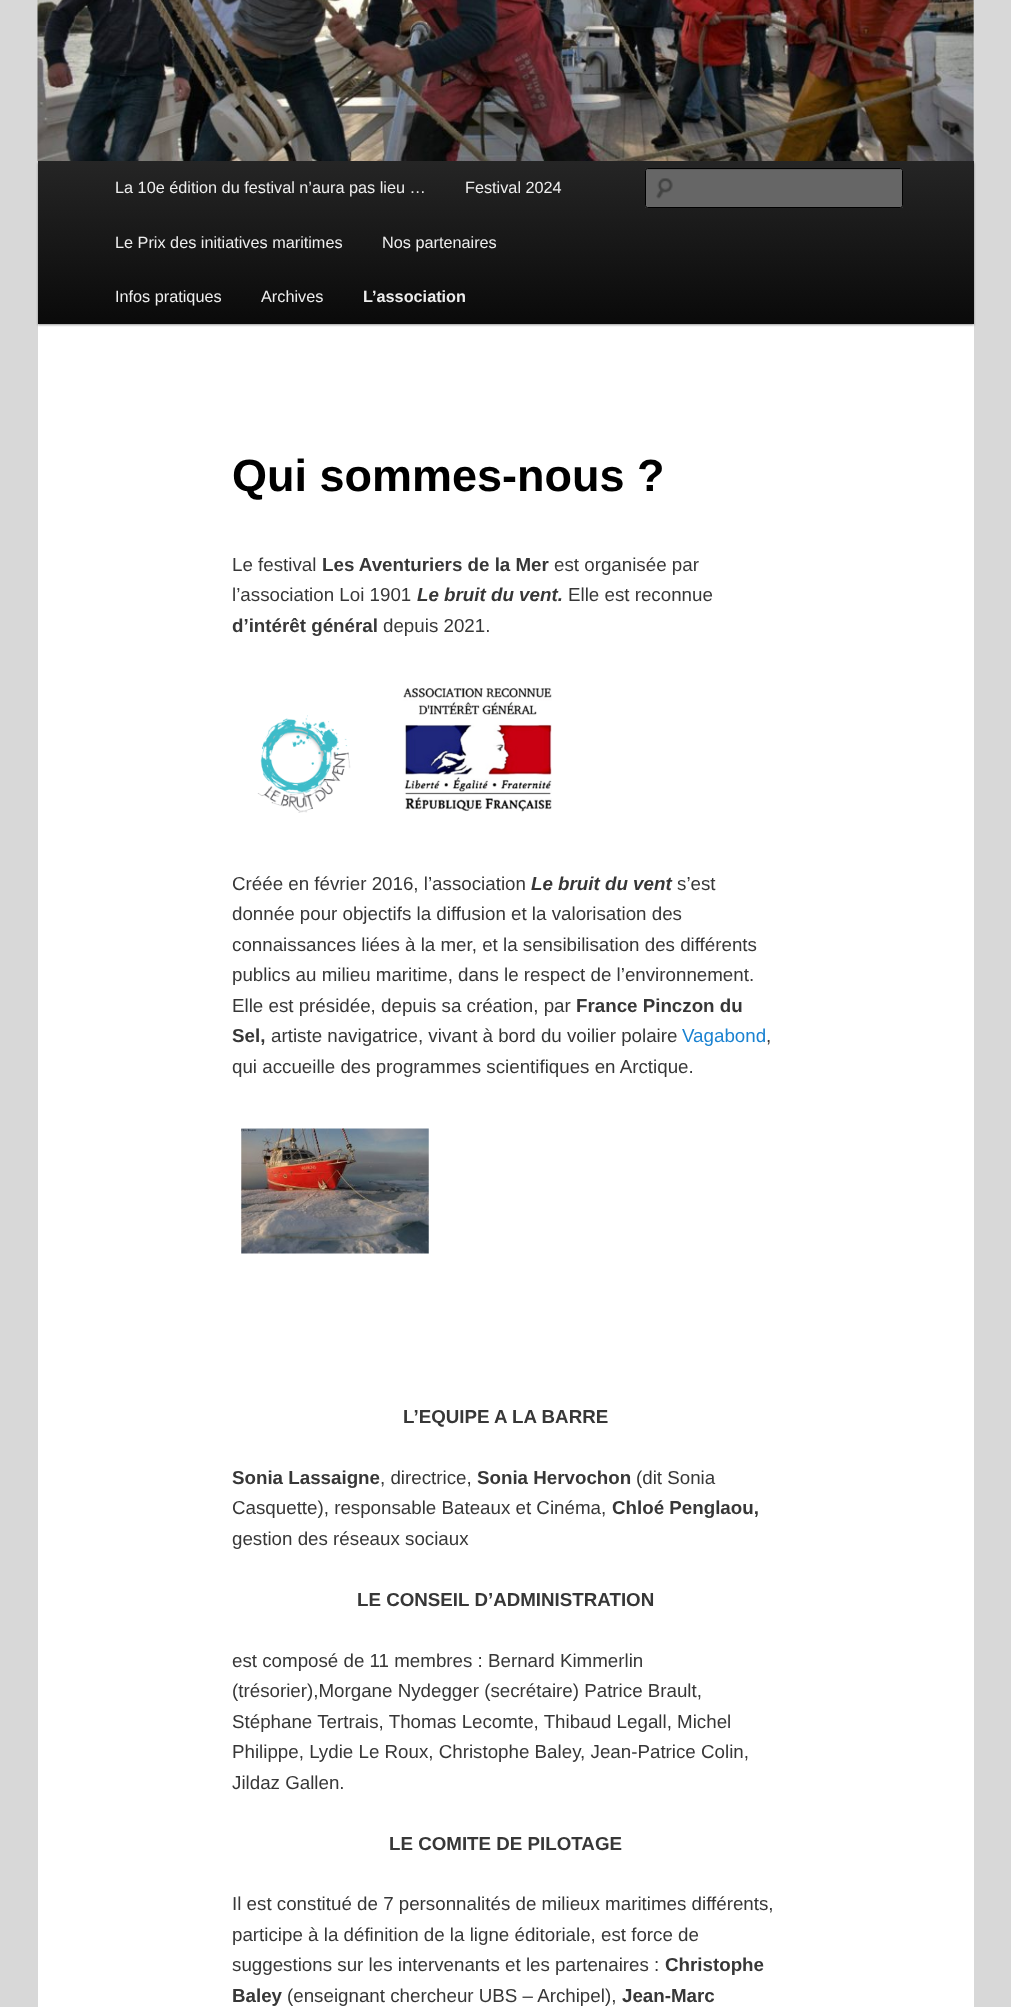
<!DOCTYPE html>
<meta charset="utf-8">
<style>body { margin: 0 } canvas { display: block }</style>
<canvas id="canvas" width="1011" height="2007"></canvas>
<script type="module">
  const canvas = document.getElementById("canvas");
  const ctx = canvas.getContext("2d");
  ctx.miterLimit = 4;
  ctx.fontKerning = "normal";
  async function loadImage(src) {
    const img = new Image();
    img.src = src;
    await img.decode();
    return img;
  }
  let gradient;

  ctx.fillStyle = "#d8d8d8";
  ctx.fillRect(0, 0, 1011, 2007);
  ctx.fillStyle = "#ffffff";
  ctx.fillRect(38, 0, 936, 2007);
  ctx.fillStyle = "rgba(0, 0, 0, 0.4)";
  ctx.filter = "blur(1px)";
  ctx.beginPath();
  ctx.rect(38, 163, 936, 162);
  ctx.fill();
  ctx.filter = "none";
  ctx.drawImage(await loadImage("img1.png"), 37, 0, 937, 161);
  gradient = ctx.createLinearGradient(506, 161, 506, 324);
  gradient.addColorStop(0, "#252525");
  gradient.addColorStop(1, "#0a0a0a");
  ctx.fillStyle = gradient;
  ctx.fillRect(38, 161, 936, 163);
  ctx.font = "16.25px Liberation Sans";
  ctx.fillStyle = "#eeeeee";
  ctx.fillText("La 10e édition du festival n’aura pas lieu …", 115, 193);
  ctx.fillText("Festival 2024", 465, 193);
  ctx.fillText("Le Prix des initiatives maritimes", 115, 248);
  ctx.fillText("Nos partenaires", 382, 248);
  ctx.fillText("Infos pratiques", 115, 302);
  ctx.fillText("Archives", 261, 302);
  ctx.font = "bold 16.25px Liberation Sans";
  ctx.fillText("L’association", 363, 302);
  ctx.fillStyle = "#666666";
  ctx.beginPath();
  ctx.roundRect(645, 168, 258, 40, 2.5);
  ctx.fill();
  ctx.drawImage(await loadImage("img2.png"), 656, 178, 17, 21);
  ctx.fillStyle = "#5c5c5c";
  ctx.beginPath();
  ctx.moveTo(648, 170);
  ctx.lineTo(900, 170);
  ctx.lineTo(901, 171);
  ctx.lineTo(901, 169);
  ctx.lineTo(647, 169);
  ctx.bezierCurveTo(646, 169, 646, 170, 646, 171);
  ctx.closePath();
  ctx.fill();
  ctx.beginPath();
  ctx.roundRect(645.5, 168.5, 257, 39, 2);
  ctx.strokeStyle = "#000000";
  ctx.stroke();
  ctx.font = "bold 45px Liberation Sans";
  ctx.fillStyle = "#000000";
  ctx.fillText("Qui sommes-nous ?", 232, 491);
  ctx.font = "18.75px Liberation Sans";
  ctx.fillStyle = "#373737";
  ctx.fillText("Le festival", 232, 571);
  ctx.font = "bold 18.75px Liberation Sans";
  ctx.fillText("Les Aventuriers de la Mer", 322, 571);
  ctx.font = "18.75px Liberation Sans";
  ctx.fillText("est organisée par", 554, 571);
  ctx.fillText("l’association Loi 1901", 232, 601);
  ctx.font = "italic bold 18.75px Liberation Sans";
  ctx.fillText("Le bruit du vent.", 417, 601);
  ctx.font = "18.75px Liberation Sans";
  ctx.fillText("Elle est reconnue", 568, 601);
  ctx.font = "bold 18.75px Liberation Sans";
  ctx.fillText("d’intérêt général", 232, 632);
  ctx.font = "18.75px Liberation Sans";
  ctx.fillText("depuis 2021.", 383, 632);
  ctx.drawImage(await loadImage("img3.png"), 257, 715, 94, 98);
  ctx.drawImage(await loadImage("img4.png"), 403, 688, 149, 124);
  ctx.fillText("Créée en février 2016, l’association", 232, 890);
  ctx.font = "italic bold 18.75px Liberation Sans";
  ctx.fillText("Le bruit du vent", 531, 890);
  ctx.font = "18.75px Liberation Sans";
  ctx.fillText("s’est", 677, 890);
  ctx.fillText("donnée pour objectifs la diffusion et la valorisation des", 232, 920);
  ctx.fillText("connaissances liées à la mer, et la sensibilisation des différents", 232, 951);
  ctx.fillText("publics au milieu maritime, dans le respect de l’environnement.", 232, 981);
  ctx.fillText("Elle est présidée, depuis sa création, par", 232, 1012);
  ctx.font = "bold 18.75px Liberation Sans";
  ctx.fillText("France Pinczon du", 576, 1012);
  ctx.fillText("Sel,", 232, 1042);
  ctx.font = "18.75px Liberation Sans";
  ctx.fillText("artiste navigatrice, vivant à bord du voilier polaire", 271, 1042);
  ctx.fillStyle = "#1982d1";
  ctx.fillText("Vagabond", 682, 1042);
  ctx.fillStyle = "#373737";
  ctx.fillText(",", 766, 1042);
  ctx.fillText("qui accueille des programmes scientifiques en Arctique.", 232, 1073);
  ctx.drawImage(await loadImage("img5.png"), 241, 1128, 188, 126);
  ctx.font = "bold 18.75px Liberation Sans";
  ctx.fillText("L’EQUIPE A LA BARRE", 403, 1423);
  ctx.fillText("Sonia Lassaigne", 232, 1484);
  ctx.font = "18.75px Liberation Sans";
  ctx.fillText(", directrice,", 380, 1484);
  ctx.font = "bold 18.75px Liberation Sans";
  ctx.fillText("Sonia Hervochon", 477, 1484);
  ctx.font = "18.75px Liberation Sans";
  ctx.fillText("(dit Sonia", 636, 1484);
  ctx.fillText("Casquette), responsable Bateaux et Cinéma,", 232, 1514);
  ctx.font = "bold 18.75px Liberation Sans";
  ctx.fillText("Chloé Penglaou,", 612, 1514);
  ctx.font = "18.75px Liberation Sans";
  ctx.fillText("gestion des réseaux sociaux", 232, 1545);
  ctx.font = "bold 18.75px Liberation Sans";
  ctx.fillText("LE CONSEIL D’ADMINISTRATION", 357, 1606);
  ctx.font = "18.75px Liberation Sans";
  ctx.fillText("est composé de 11 membres : Bernard Kimmerlin", 232, 1667);
  ctx.fillText("(trésorier),Morgane Nydegger (secrétaire) Patrice Brault,", 232, 1697);
  ctx.fillText("Stéphane Tertrais, Thomas Lecomte, Thibaud Legall, Michel", 232, 1728);
  ctx.fillText("Philippe, Lydie Le Roux, Christophe Baley, Jean-Patrice Colin,", 232, 1758);
  ctx.fillText("Jildaz Gallen.", 232, 1789);
  ctx.font = "bold 18.75px Liberation Sans";
  ctx.fillText("LE COMITE DE PILOTAGE", 389, 1850);
  ctx.font = "18.75px Liberation Sans";
  ctx.fillText("Il est constitué de 7 personnalités de milieux maritimes différents,", 232, 1910);
  ctx.fillText("participe à la définition de la ligne éditoriale, est force de", 232, 1941);
  ctx.fillText("suggestions sur les intervenants et les partenaires :", 232, 1971);
  ctx.font = "bold 18.75px Liberation Sans";
  ctx.fillText("Christophe", 665, 1971);
  ctx.fillText("Baley", 232, 2002);
  ctx.font = "18.75px Liberation Sans";
  ctx.fillText("(enseignant chercheur UBS – Archipel),", 287, 2002);
  ctx.font = "bold 18.75px Liberation Sans";
  ctx.fillText("Jean-Marc", 622, 2002);
</script>
